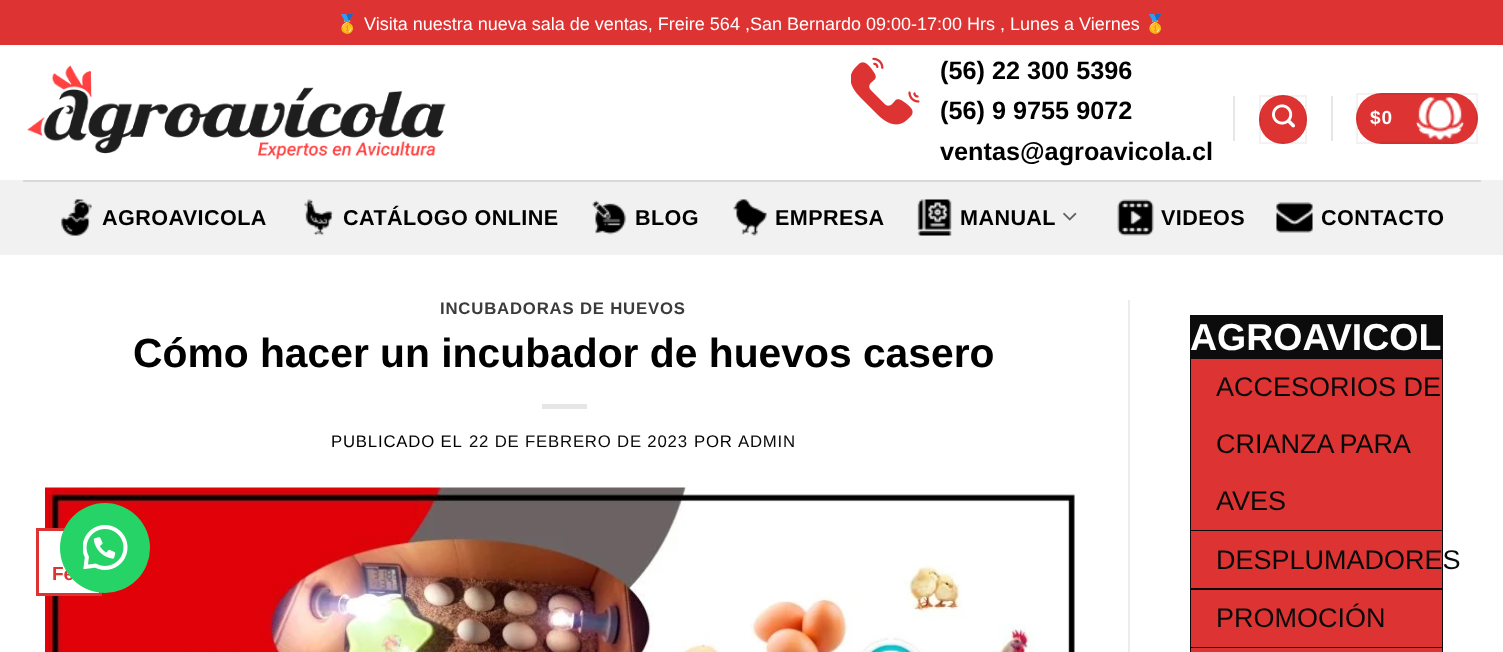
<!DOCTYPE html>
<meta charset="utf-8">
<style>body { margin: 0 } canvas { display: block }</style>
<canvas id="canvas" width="1503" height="652"></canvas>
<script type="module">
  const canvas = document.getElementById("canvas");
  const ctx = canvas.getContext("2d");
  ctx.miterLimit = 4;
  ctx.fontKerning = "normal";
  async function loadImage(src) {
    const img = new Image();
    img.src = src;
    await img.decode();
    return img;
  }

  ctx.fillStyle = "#ffffff";
  ctx.fillRect(0, 0, 1503, 652);
  ctx.fillStyle = "#dd3333";
  ctx.fillRect(0, 0, 1503, 45);
  ctx.font = "18px Noto Color Emoji";
  ctx.fillStyle = "#ffffff";
  ctx.fillText("🥇", 336, 30);
  ctx.font = "18px Liberation Sans";
  ctx.fillText("Visita nuestra nueva sala de ventas, Freire 564 ,San Bernardo 09:00-17:00 Hrs , Lunes a Viernes", 364, 30);
  ctx.font = "18px Noto Color Emoji";
  ctx.fillText("🥇", 1144, 30);
  ctx.drawImage(await loadImage("img1.png"), 27, 65, 419, 95);
  ctx.drawImage(await loadImage("img2.png"), 851, 57, 69, 68);
  ctx.font = "bold 25.25px Liberation Sans";
  ctx.fillStyle = "#000000";
  ctx.fillText("(56) 22 300 5396", 940, 79);
  ctx.fillText("(56) 9 9755 9072", 940, 119);
  ctx.fillText("ventas@agroavicola.cl", 940, 160);
  ctx.fillStyle = "#e6e6e6";
  ctx.fillRect(1233, 96, 2, 45);
  ctx.fillStyle = "#dd3333";
  ctx.beginPath();
  ctx.roundRect(1259, 95, 48, 49, 24);
  ctx.fill();
  ctx.strokeStyle = "rgba(0, 0, 0, 0.05)";
  ctx.lineWidth = 2;
  ctx.strokeRect(1260, 96, 46, 47);
  ctx.drawImage(await loadImage("img3.png"), 1272, 104, 23, 24);
  ctx.fillStyle = "#e6e6e6";
  ctx.fillRect(1331, 96, 2, 45);
  ctx.fillStyle = "#dd3333";
  ctx.beginPath();
  ctx.roundRect(1356, 93, 122, 51, 25.5);
  ctx.fill();
  ctx.strokeRect(1357, 94, 120, 49);
  ctx.letterSpacing = "1px";
  ctx.font = "bold 19px Liberation Sans";
  ctx.fillStyle = "#ffffff";
  ctx.fillText("$0", 1370, 124);
  ctx.drawImage(await loadImage("img4.png"), 1416, 97, 48, 43);
  ctx.fillStyle = "#f1f1f1";
  ctx.fillRect(0, 180, 1503, 75);
  ctx.fillStyle = "#d9d9d9";
  ctx.fillRect(23, 180, 1458, 2);
  ctx.drawImage(await loadImage("img5.png"), 61, 199, 31, 37);
  ctx.letterSpacing = "0.4px";
  ctx.font = "bold 21.6px Liberation Sans";
  ctx.fillStyle = "#000000";
  ctx.fillText("AGROAVICOLA", 102, 225);
  ctx.drawImage(await loadImage("img6.png"), 304, 199, 29, 37);
  ctx.fillText("CATÁLOGO ONLINE", 343, 225);
  ctx.drawImage(await loadImage("img7.png"), 592, 200, 34, 35);
  ctx.fillText("BLOG", 635, 225);
  ctx.drawImage(await loadImage("img8.png"), 733, 199, 34, 37);
  ctx.fillText("EMPRESA", 775, 225);
  ctx.drawImage(await loadImage("img9.png"), 917, 199, 35, 37);
  ctx.fillText("MANUAL", 960, 225);
  ctx.drawImage(await loadImage("img10.png"), 1063, 212, 14, 9);
  ctx.drawImage(await loadImage("img11.png"), 1117, 199, 37, 37);
  ctx.fillText("VIDEOS", 1161, 225);
  ctx.drawImage(await loadImage("img12.png"), 1276, 202, 37, 31);
  ctx.fillText("CONTACTO", 1321, 225);
  ctx.letterSpacing = "0.8px";
  ctx.font = "bold 16.75px Liberation Sans";
  ctx.fillStyle = "#3b3b3b";
  ctx.fillText("INCUBADORAS DE HUEVOS", 440, 314);
  ctx.letterSpacing = "0px";
  ctx.font = "bold 40.8px Liberation Sans";
  ctx.fillStyle = "#000000";
  ctx.fillText("Cómo hacer un incubador de huevos casero", 133, 367);
  ctx.fillStyle = "#e6e6e6";
  ctx.fillRect(542, 404, 45, 5);
  ctx.letterSpacing = "0.8px";
  ctx.font = "16.75px Liberation Sans";
  ctx.fillStyle = "#000000";
  ctx.fillText("PUBLICADO EL", 331, 447);
  ctx.fillStyle = "#0a0a0a";
  ctx.fillText("22 DE FEBRERO DE 2023", 469, 447);
  ctx.fillStyle = "#000000";
  ctx.fillText("POR", 694, 447);
  ctx.fillStyle = "#0a0a0a";
  ctx.fillText("ADMIN", 738, 447);
  ctx.drawImage(await loadImage("img13.png"), 45, 487, 1030, 165);
  ctx.fillStyle = "#ffffff";
  ctx.fillRect(45, 531, 54, 62);
  ctx.strokeStyle = "#dd3333";
  ctx.lineWidth = 3;
  ctx.strokeRect(37.5, 529.5, 63, 65);
  ctx.letterSpacing = "0px";
  ctx.font = "bold 19px Liberation Sans";
  ctx.fillStyle = "#dd3333";
  ctx.fillText("Fe", 52, 580);
  ctx.fillStyle = "#ececec";
  ctx.fillRect(1128, 300, 2, 352);
  ctx.strokeStyle = "#0c0c0c";
  ctx.lineWidth = 2;
  ctx.strokeRect(1191, 316, 251, 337);
  ctx.fillStyle = "#0c0c0c";
  ctx.fillRect(1192, 317, 249, 42);
  ctx.font = "bold 37.5px Liberation Sans";
  ctx.fillStyle = "#ffffff";
  ctx.fillText("AGROAVICOL", 1190, 350);
  ctx.fillStyle = "#dd3333";
  ctx.fillRect(1191, 359, 251, 171);
  ctx.fillStyle = "#0c0c0c";
  ctx.fillRect(1191, 530, 251, 1);
  ctx.font = "27px Liberation Sans";
  ctx.fillStyle = "#0a0a0a";
  ctx.fillText("ACCESORIOS DE", 1216, 396);
  ctx.wordSpacing = "-1px";
  ctx.fillText("CRIANZA PARA", 1216, 453);
  ctx.wordSpacing = "0px";
  ctx.fillText("AVES", 1216, 510);
  ctx.fillStyle = "#dd3333";
  ctx.fillRect(1191, 531, 251, 57);
  ctx.fillStyle = "#0c0c0c";
  ctx.fillRect(1191, 588, 251, 2);
  ctx.fillStyle = "#0a0a0a";
  ctx.fillText("DESPLUMADORES", 1216, 569);
  ctx.fillStyle = "#dd3333";
  ctx.fillRect(1191, 590, 251, 57);
  ctx.fillStyle = "#0c0c0c";
  ctx.fillRect(1191, 647, 251, 1);
  ctx.fillStyle = "#0a0a0a";
  ctx.fillText("PROMOCIÓN", 1216, 627);
  ctx.fillStyle = "#dd3333";
  ctx.fillRect(1191, 648, 251, 4);
  ctx.fillStyle = "#25d366";
  ctx.beginPath();
  ctx.arc(105, 548, 45, 0, Math.PI * 2);
  ctx.fill();
  ctx.drawImage(await loadImage("img14.png"), 83, 525, 45, 45);
</script>
